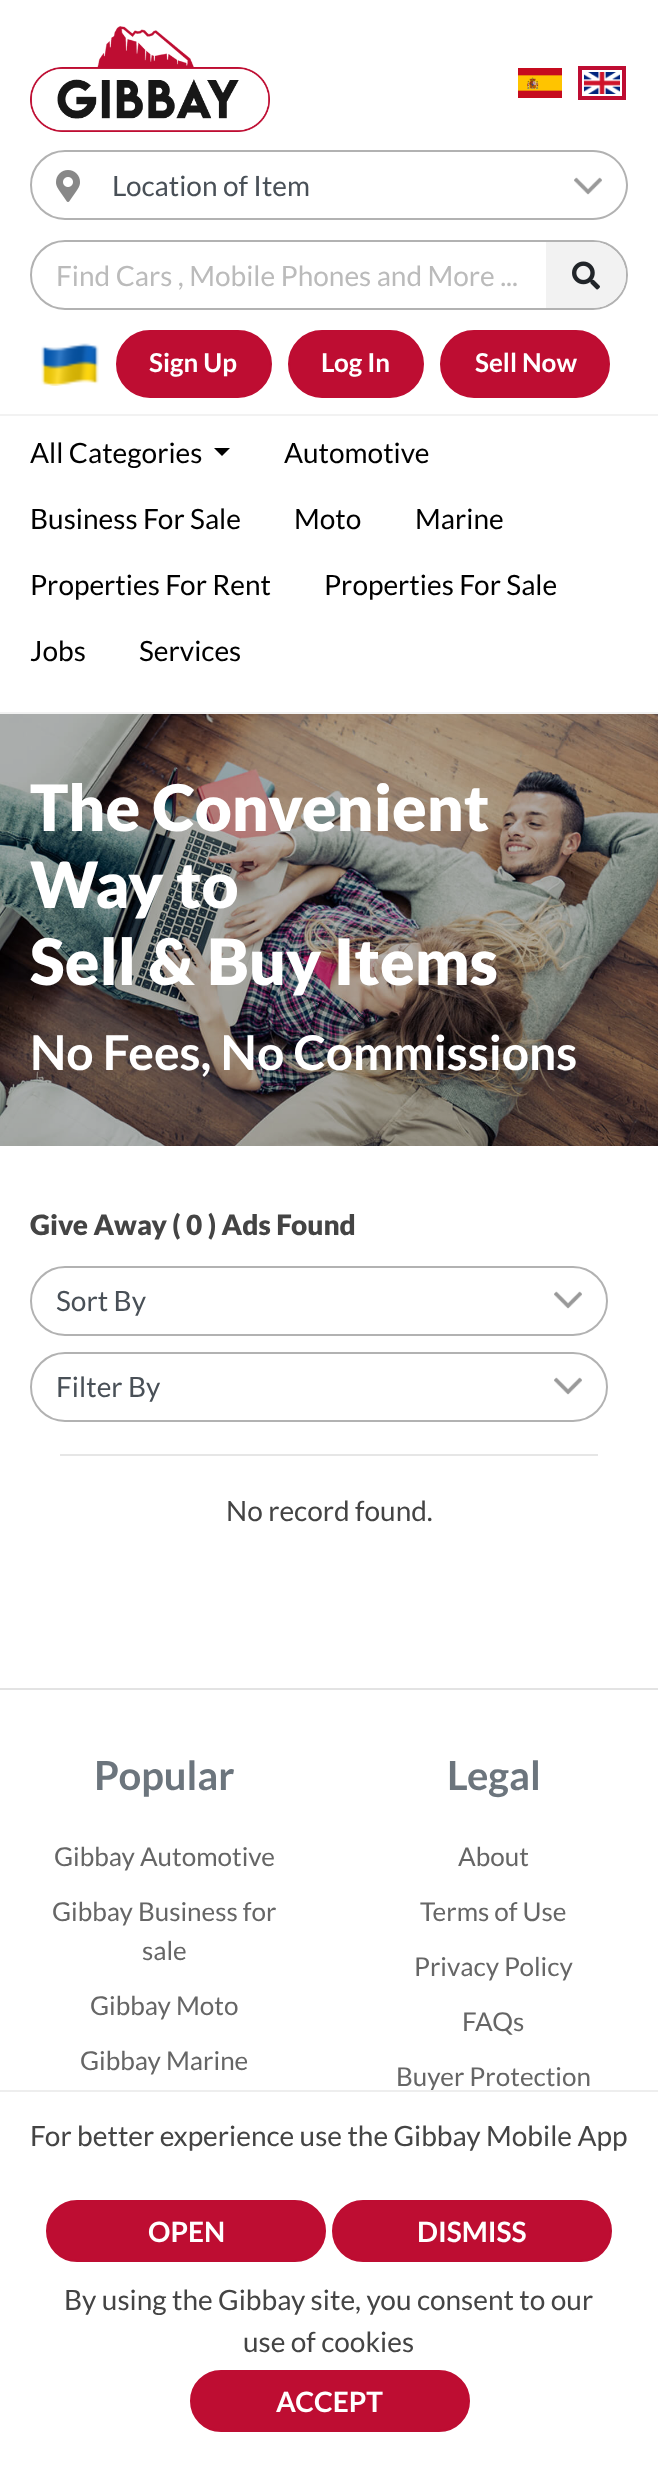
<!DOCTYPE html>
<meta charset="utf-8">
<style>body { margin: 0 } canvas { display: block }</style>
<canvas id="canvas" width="658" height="2467"></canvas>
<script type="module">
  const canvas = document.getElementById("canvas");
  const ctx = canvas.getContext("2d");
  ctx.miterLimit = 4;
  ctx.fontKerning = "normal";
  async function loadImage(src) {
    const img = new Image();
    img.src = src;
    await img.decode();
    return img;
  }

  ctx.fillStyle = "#ffffff";
  ctx.fillRect(0, 0, 658, 2467);
  ctx.fillStyle = "#f2f2f2";
  ctx.fillRect(0, 414, 658, 2);
  ctx.drawImage(await loadImage("img1.png"), 30, 26, 240, 106);
  ctx.drawImage(await loadImage("img2.png"), 518, 68, 44, 30);
  ctx.strokeStyle = "#be0d32";
  ctx.lineWidth = 4;
  ctx.strokeRect(580, 68, 44, 30);
  ctx.drawImage(await loadImage("img3.png"), 584, 72, 36, 22);
  ctx.beginPath();
  ctx.roundRect(31, 151, 58, 68, [34, 0, 0, 34]);
  ctx.strokeStyle = "#b2b2b2";
  ctx.lineWidth = 2;
  ctx.stroke();
  ctx.drawImage(await loadImage("img4.png"), 56, 170, 24, 32);
  ctx.fillStyle = "#ffffff";
  ctx.beginPath();
  ctx.roundRect(88, 150, 540, 70, [0, 35, 35, 0]);
  ctx.fill();
  ctx.drawImage(await loadImage("img5.png"), 574, 177, 28, 18);
  ctx.fillStyle = "#b2b2b2";
  ctx.beginPath();
  ctx.moveTo(88, 150);
  ctx.lineTo(593, 150);
  ctx.bezierCurveTo(612, 150, 628, 166, 628, 185);
  ctx.bezierCurveTo(628, 204, 612, 220, 593, 220);
  ctx.lineTo(88, 220);
  ctx.closePath();
  ctx.moveTo(88, 152);
  ctx.lineTo(593, 152);
  ctx.bezierCurveTo(611, 152, 626, 167, 626, 185);
  ctx.bezierCurveTo(626, 203, 611, 218, 593, 218);
  ctx.lineTo(88, 218);
  ctx.closePath();
  ctx.fill("evenodd");
  ctx.font = "28px Lato";
  ctx.fillStyle = "#495057";
  ctx.fillText("Location of Item", 112, 196);
  ctx.beginPath();
  ctx.roundRect(31, 241, 596, 68, 34);
  ctx.stroke();
  ctx.fillStyle = "#bbbbbb";
  ctx.fillText("Find Cars , Mobile Phones and More ...", 56, 286);
  ctx.fillStyle = "#f2f2f2";
  ctx.beginPath();
  ctx.roundRect(547, 243, 78, 64, [0, 32, 32, 0]);
  ctx.fill();
  ctx.strokeStyle = "#f2f2f2";
  ctx.stroke();
  ctx.drawImage(await loadImage("img6.png"), 572, 261, 28, 29);
  ctx.drawImage(await loadImage("img7.png"), 41, 343, 58, 43);
  ctx.fillStyle = "#be0d32";
  ctx.beginPath();
  ctx.roundRect(117, 331, 154, 66, 33);
  ctx.fill();
  ctx.strokeStyle = "#be0d32";
  ctx.stroke();
  ctx.font = "bold 26px Lato";
  ctx.fillStyle = "#ffffff";
  ctx.fillText("Sign Up", 149, 372);
  ctx.fillStyle = "#be0d32";
  ctx.beginPath();
  ctx.roundRect(289, 331, 134, 66, 33);
  ctx.fill();
  ctx.stroke();
  ctx.fillStyle = "#ffffff";
  ctx.fillText("Log In", 321, 372);
  ctx.fillStyle = "#be0d32";
  ctx.beginPath();
  ctx.roundRect(441, 331, 168, 66, 33);
  ctx.fill();
  ctx.stroke();
  ctx.fillStyle = "#ffffff";
  ctx.fillText("Sell Now", 475, 372);
  ctx.fillStyle = "#f2f2f2";
  ctx.fillRect(0, 712, 658, 2);
  ctx.font = "28px Lato";
  ctx.fillStyle = "#000000";
  ctx.fillText("All Categories", 30, 463);
  ctx.beginPath();
  ctx.moveTo(214, 448);
  ctx.lineTo(230, 448);
  ctx.lineTo(222, 456);
  ctx.closePath();
  ctx.fill();
  ctx.fillText("Automotive", 284, 463);
  ctx.fillText("Business For Sale", 30, 529);
  ctx.fillText("Moto", 294, 529);
  ctx.fillText("Marine", 415, 529);
  ctx.fillText("Properties For Rent", 30, 595);
  ctx.fillText("Properties For Sale", 324, 595);
  ctx.fillText("Jobs", 30, 661);
  ctx.fillText("Services", 139, 661);
  ctx.drawImage(await loadImage("img8.png"), 0, 714, 658, 432);
  ctx.font = "900 64px Lato";
  ctx.fillStyle = "#ffffff";
  ctx.fillText("The Convenient", 30, 831);
  ctx.fillText("Way to", 30, 908);
  ctx.fillText("Sell & Buy Items", 30, 985);
  ctx.font = "bold 48px Lato";
  ctx.fillText("No Fees, No Commissions", 30, 1070);
  ctx.font = "900 28px Lato";
  ctx.fillStyle = "#444444";
  ctx.fillText("Give Away ( 0 ) Ads Found", 30, 1235);
  ctx.drawImage(await loadImage("img9.png"), 554, 1291, 28, 18);
  ctx.beginPath();
  ctx.roundRect(31, 1267, 576, 68, 34);
  ctx.strokeStyle = "#b2b2b2";
  ctx.stroke();
  ctx.font = "28px Lato";
  ctx.fillStyle = "#495057";
  ctx.fillText("Sort By", 56, 1311);
  ctx.drawImage(await loadImage("img9.png"), 554, 1377, 28, 18);
  ctx.beginPath();
  ctx.roundRect(31, 1353, 576, 68, 34);
  ctx.stroke();
  ctx.fillText("Filter By", 56, 1397);
  ctx.fillStyle = "#e6e6e6";
  ctx.fillRect(60, 1454, 538, 2);
  ctx.fillStyle = "#444444";
  ctx.fillText("No record found.", 226, 1521);
  ctx.fillStyle = "#e3e3e3";
  ctx.fillRect(0, 1688, 658, 2);
  ctx.font = "bold 40px Lato";
  ctx.fillStyle = "#6c757d";
  ctx.fillText("Popular", 94, 1790);
  ctx.font = "26px Lato";
  ctx.fillStyle = "#666666";
  ctx.fillText("Gibbay Automotive", 54, 1866);
  ctx.fillText("Gibbay Business for", 52, 1921);
  ctx.fillText("sale", 142, 1960);
  ctx.fillText("Gibbay Moto", 90, 2015);
  ctx.fillText("Gibbay Marine", 80, 2070);
  ctx.font = "bold 40px Lato";
  ctx.fillStyle = "#6c757d";
  ctx.fillText("Legal", 447, 1790);
  ctx.font = "26px Lato";
  ctx.fillStyle = "#666666";
  ctx.fillText("About", 458, 1866);
  ctx.fillText("Terms of Use", 420, 1921);
  ctx.fillText("Privacy Policy", 414, 1976);
  ctx.fillText("FAQs", 462, 2031);
  ctx.fillText("Buyer Protection", 396, 2086);
  ctx.fillStyle = "#eeeeee";
  ctx.fillRect(0, 2090, 658, 2);
  ctx.font = "28px Lato";
  ctx.fillStyle = "#444444";
  ctx.fillText("For better experience use the Gibbay Mobile App", 30, 2146);
  ctx.fillStyle = "#be0d32";
  ctx.beginPath();
  ctx.roundRect(47, 2201, 278, 60, 30);
  ctx.fill();
  ctx.strokeStyle = "#be0d32";
  ctx.stroke();
  ctx.font = "bold 28px Lato";
  ctx.fillStyle = "#ffffff";
  ctx.fillText("OPEN", 148, 2242);
  ctx.fillStyle = "#be0d32";
  ctx.beginPath();
  ctx.roundRect(333, 2201, 278, 60, 30);
  ctx.fill();
  ctx.stroke();
  ctx.fillStyle = "#ffffff";
  ctx.fillText("DISMISS", 417, 2242);
  ctx.font = "28px Lato";
  ctx.fillStyle = "#444444";
  ctx.fillText("By using the Gibbay site, you consent to our", 64, 2310);
  ctx.fillText("use of cookies", 243, 2352);
  ctx.fillStyle = "#be0d32";
  ctx.beginPath();
  ctx.roundRect(191, 2371, 278, 60, 30);
  ctx.fill();
  ctx.stroke();
  ctx.font = "bold 28px Lato";
  ctx.fillStyle = "#ffffff";
  ctx.fillText("ACCEPT", 276, 2412);
</script>
